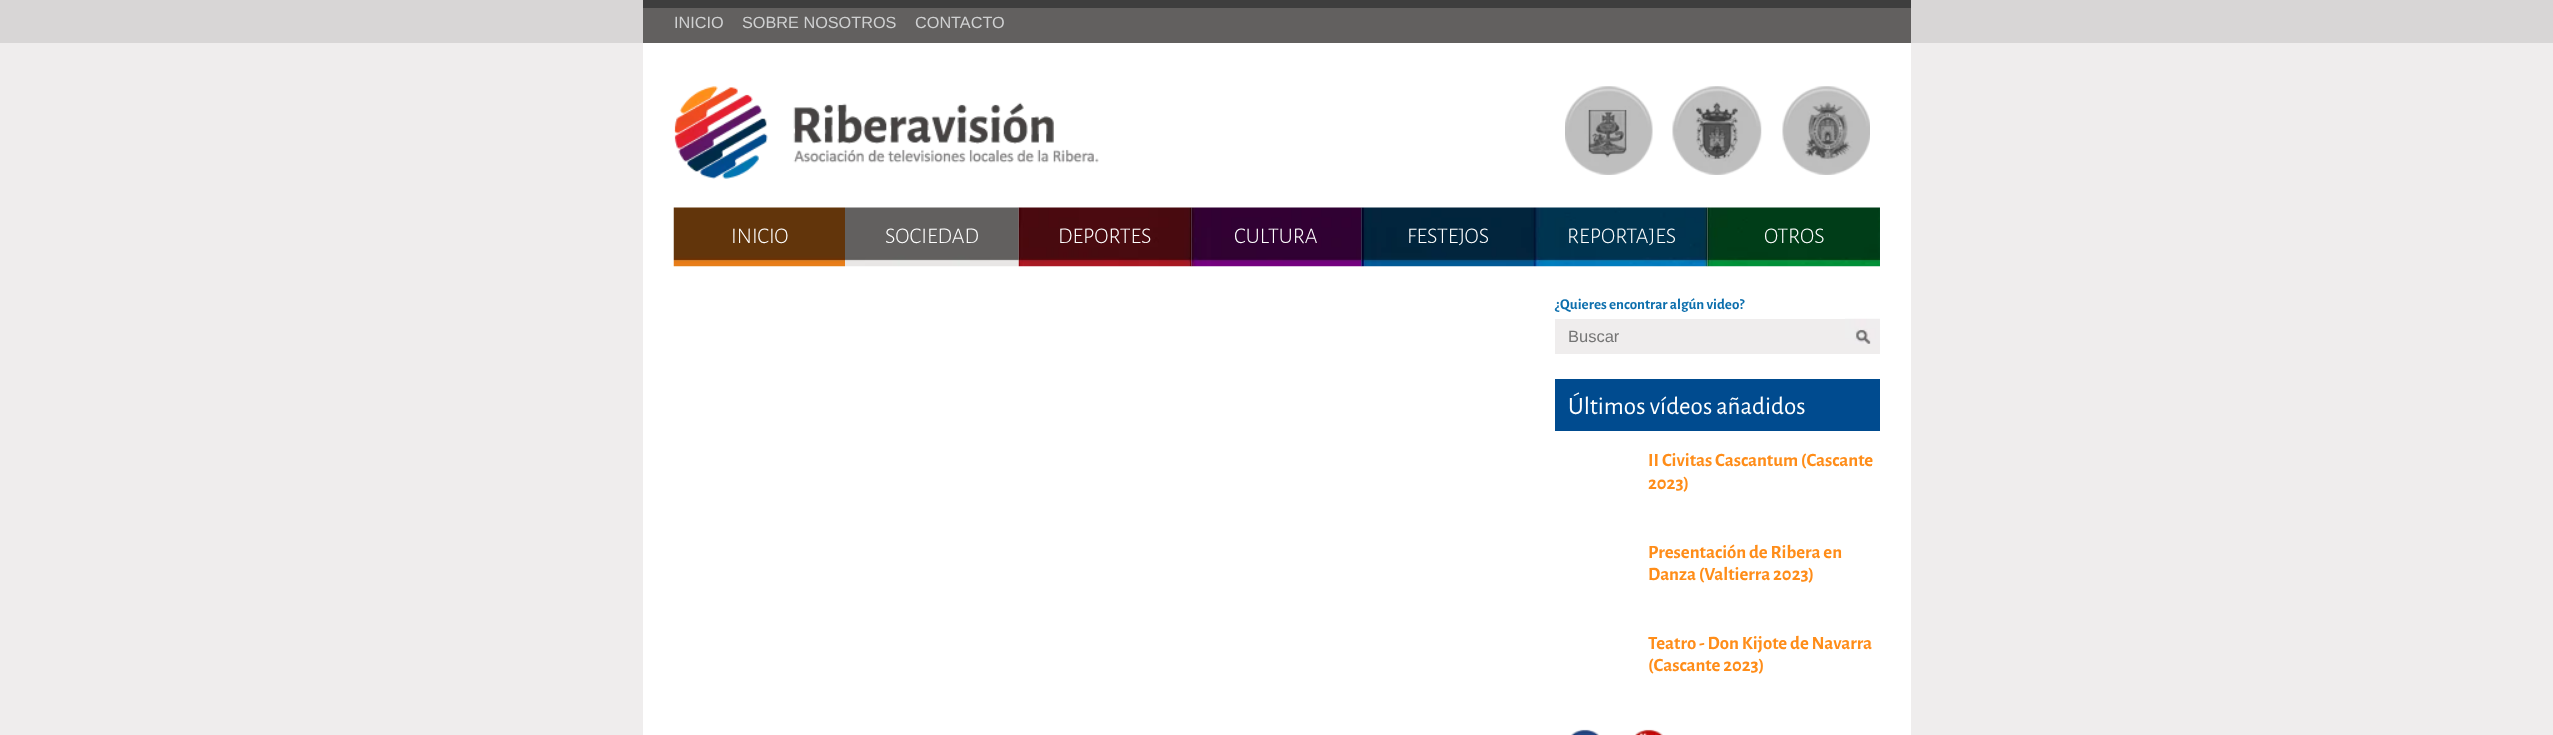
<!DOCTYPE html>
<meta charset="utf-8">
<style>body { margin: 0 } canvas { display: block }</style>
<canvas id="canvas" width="2553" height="735"></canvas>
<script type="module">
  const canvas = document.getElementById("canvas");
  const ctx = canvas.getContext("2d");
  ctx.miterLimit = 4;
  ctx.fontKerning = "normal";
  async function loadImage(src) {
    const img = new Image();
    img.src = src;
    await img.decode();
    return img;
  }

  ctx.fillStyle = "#efeded";
  ctx.fillRect(0, 0, 2553, 735);
  ctx.fillStyle = "#d8d6d6";
  ctx.fillRect(0, 0, 2553, 43);
  ctx.fillStyle = "#3e3e3e";
  ctx.fillRect(643, 0, 1268, 8);
  ctx.fillStyle = "#62605f";
  ctx.fillRect(643, 8, 1268, 35);
  ctx.font = "16.25px Liberation Sans";
  ctx.fillStyle = "#cfd0d1";
  ctx.fillText("INICIO", 674, 28);
  ctx.fillText("SOBRE NOSOTROS", 742, 28);
  ctx.fillText("CONTACTO", 915, 28);
  ctx.fillStyle = "#ffffff";
  ctx.fillRect(643, 43, 1268, 692);
  ctx.drawImage(await loadImage("img1.png"), 674, 86, 425, 93);
  ctx.drawImage(await loadImage("img2.png"), 1565, 86, 88, 89);
  ctx.drawImage(await loadImage("img3.png"), 1672, 86, 90, 89);
  ctx.drawImage(await loadImage("img4.png"), 1782, 86, 88, 89);
  ctx.drawImage(await loadImage("img5.png"), 673, 207, 172, 60);
  ctx.font = "300 22.5px Alegreya Sans";
  ctx.fillText("INICIO", 731, 243);
  ctx.drawImage(await loadImage("img6.png"), 845, 207, 174, 60);
  ctx.fillText("SOCIEDAD", 885, 243);
  ctx.drawImage(await loadImage("img7.png"), 1018, 207, 174, 60);
  ctx.fillText("DEPORTES", 1058, 243);
  ctx.drawImage(await loadImage("img8.png"), 1191, 207, 171, 60);
  ctx.fillText("CULTURA", 1234, 243);
  ctx.drawImage(await loadImage("img9.png"), 1361, 207, 174, 60);
  ctx.fillText("FESTEJOS", 1407, 243);
  ctx.drawImage(await loadImage("img10.png"), 1535, 207, 173, 60);
  ctx.fillText("REPORTAJES", 1567, 243);
  ctx.drawImage(await loadImage("img11.png"), 1707, 207, 173, 60);
  ctx.fillText("OTROS", 1764, 243);
  ctx.font = "bold 15px Alegreya Sans";
  ctx.fillStyle = "#0d6fad";
  ctx.fillText("¿Quieres encontrar algún video?", 1555, 309);
  ctx.fillStyle = "#efeded";
  ctx.fillRect(1555, 319, 290, 35);
  ctx.font = "16.5px Liberation Sans";
  ctx.fillStyle = "#757575";
  ctx.fillText("Buscar", 1568, 342);
  ctx.fillStyle = "#efeded";
  ctx.fillRect(1845, 344, 35, 10);
  ctx.drawImage(await loadImage("img12.png"), 1845, 318, 35, 26);
  ctx.fillStyle = "#004b8f";
  ctx.fillRect(1555, 379, 325, 52);
  ctx.font = "25px Alegreya Sans";
  ctx.fillStyle = "#ffffff";
  ctx.fillText("Últimos vídeos añadidos", 1568, 414);
  ctx.font = "bold 18.75px Alegreya Sans";
  ctx.fillStyle = "#ff8d19";
  ctx.fillText("II Civitas Cascantum (Cascante", 1648, 466);
  ctx.fillText("2023)", 1648, 489);
  ctx.fillText("Presentación de Ribera en", 1648, 558);
  ctx.fillText("Danza (Valtierra 2023)", 1648, 580);
  ctx.fillText("Teatro - Don Kijote de Navarra", 1648, 649);
  ctx.fillText("(Cascante 2023)", 1648, 671);
  ctx.drawImage(await loadImage("img13.png"), 1571, 729, 28, 6);
  ctx.drawImage(await loadImage("img14.png"), 1635, 729, 28, 6);
</script>
